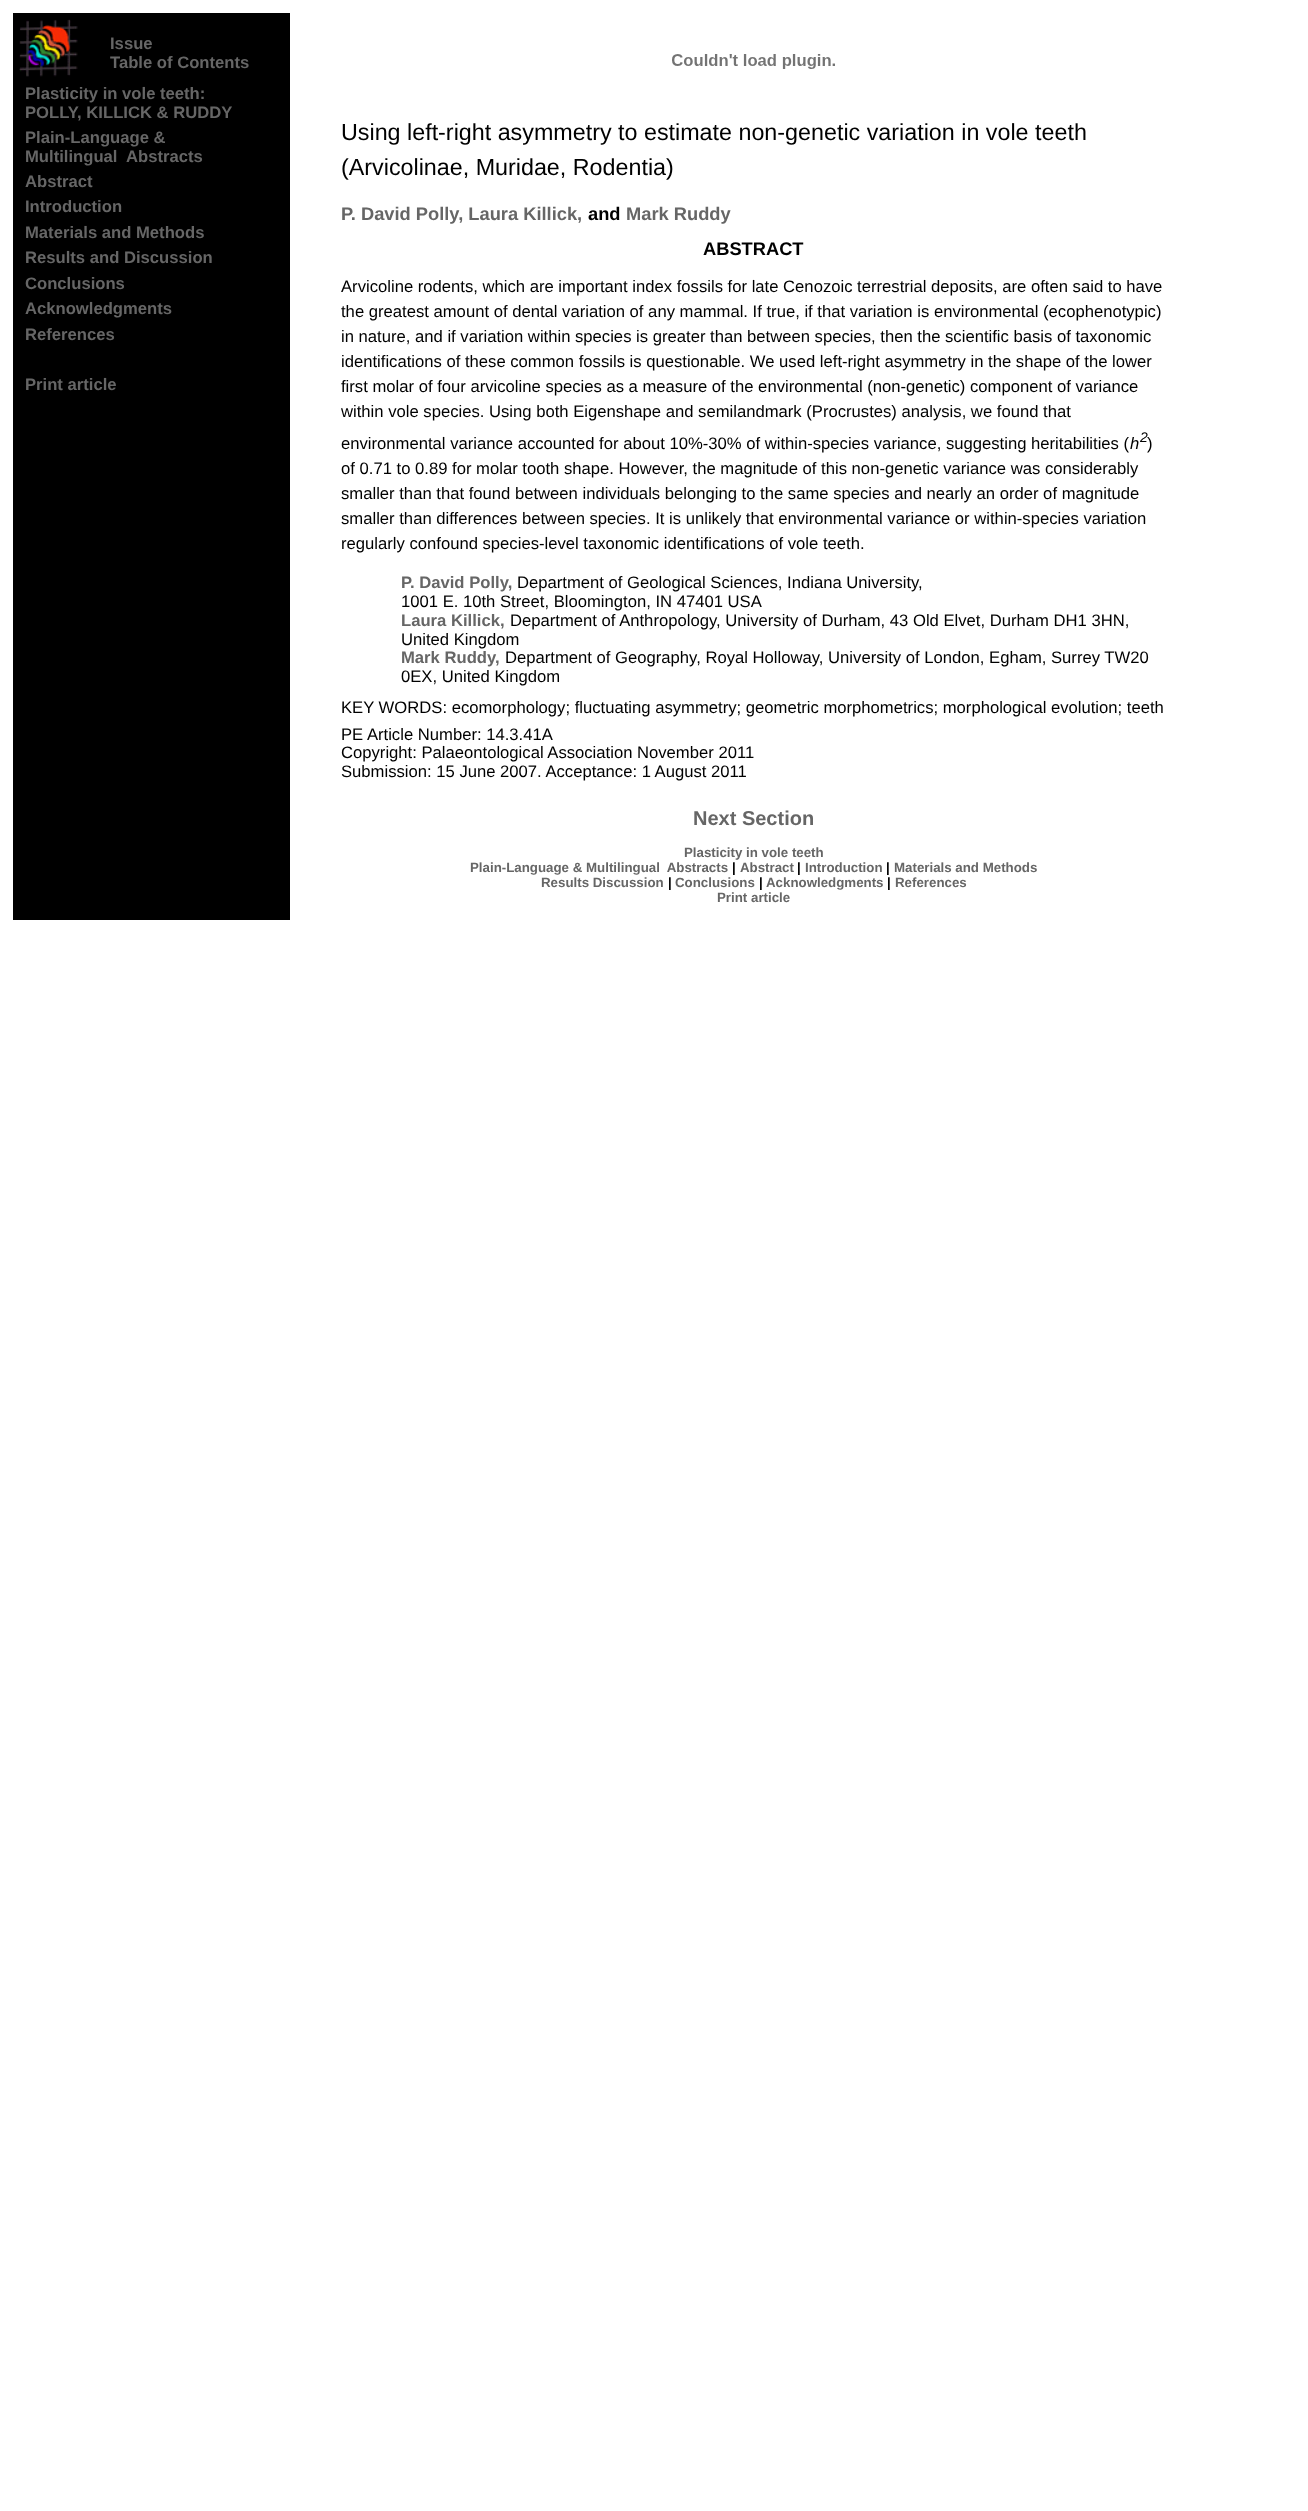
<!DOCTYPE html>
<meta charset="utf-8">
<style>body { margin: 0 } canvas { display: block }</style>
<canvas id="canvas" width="1308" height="2511"></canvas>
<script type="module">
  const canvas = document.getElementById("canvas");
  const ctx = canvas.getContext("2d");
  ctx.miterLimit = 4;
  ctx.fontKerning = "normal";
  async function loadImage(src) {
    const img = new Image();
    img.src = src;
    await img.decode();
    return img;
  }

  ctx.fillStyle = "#ffffff";
  ctx.fillRect(0, 0, 1308, 2511);
  ctx.fillStyle = "#000000";
  ctx.fillRect(13, 13, 277, 907);
  ctx.drawImage(await loadImage("img1.png"), 19, 19, 59, 58);
  ctx.font = "bold 16.65px Liberation Sans";
  ctx.fillStyle = "#666666";
  ctx.fillText("Issue", 110, 49);
  ctx.fillText("Table of Contents", 110, 68);
  ctx.fillText("Plasticity in vole teeth:", 25, 99);
  ctx.fillText("POLLY, KILLICK & RUDDY", 25, 118);
  ctx.fillText("Plain-Language &", 25, 143);
  ctx.fillText("Multilingual  Abstracts", 25, 162);
  ctx.fillText("Abstract", 25, 187);
  ctx.fillText("Introduction", 25, 212);
  ctx.fillText("Materials and Methods", 25, 238);
  ctx.fillText("Results and Discussion", 25, 263);
  ctx.fillText("Conclusions", 25, 289);
  ctx.fillText("Acknowledgments", 25, 314);
  ctx.fillText("References", 25, 340);
  ctx.fillText("Print article", 25, 390);
  ctx.drawImage(await loadImage("img2.png"), 672, 54, 163, 15);
  ctx.font = "23.3px Liberation Sans";
  ctx.fillStyle = "#000000";
  ctx.fillText("Using left-right asymmetry to estimate non-genetic variation in vole teeth", 341, 140);
  ctx.fillText("(Arvicolinae, Muridae, Rodentia)", 341, 175);
  ctx.font = "bold 18.3px Liberation Sans";
  ctx.fillStyle = "#666666";
  ctx.fillText("P. David Polly, Laura Killick,", 341, 220);
  ctx.fillStyle = "#000000";
  ctx.fillText("and", 588, 220);
  ctx.fillStyle = "#666666";
  ctx.fillText("Mark Ruddy", 626, 220);
  ctx.fillStyle = "#000000";
  ctx.fillText("ABSTRACT", 703, 255);
  ctx.font = "16.65px Liberation Sans";
  ctx.fillText("Arvicoline rodents, which are important index fossils for late Cenozoic terrestrial deposits, are often said to have", 341, 292);
  ctx.fillText("the greatest amount of dental variation of any mammal. If true, if that variation is environmental (ecophenotypic)", 341, 317);
  ctx.fillText("in nature, and if variation within species is greater than between species, then the scientific basis of taxonomic", 341, 342);
  ctx.fillText("identifications of these common fossils is questionable. We used left-right asymmetry in the shape of the lower", 341, 367);
  ctx.fillText("first molar of four arvicoline species as a measure of the environmental (non-genetic) component of variance", 341, 392);
  ctx.fillText("within vole species. Using both Eigenshape and semilandmark (Procrustes) analysis, we found that", 341, 417);
  ctx.fillText("environmental variance accounted for about 10%-30% of within-species variance, suggesting heritabilities (", 341, 449);
  ctx.font = "italic 16.65px Liberation Sans";
  ctx.fillText("h", 1130, 449);
  ctx.font = "italic 14px Liberation Sans";
  ctx.fillText("2", 1140, 442);
  ctx.font = "16.65px Liberation Sans";
  ctx.fillText(")", 1147, 449);
  ctx.fillText("of 0.71 to 0.89 for molar tooth shape. However, the magnitude of this non-genetic variance was considerably", 341, 474);
  ctx.fillText("smaller than that found between individuals belonging to the same species and nearly an order of magnitude", 341, 499);
  ctx.fillText("smaller than differences between species. It is unlikely that environmental variance or within-species variation", 341, 524);
  ctx.fillText("regularly confound species-level taxonomic identifications of vole teeth.", 341, 549);
  ctx.font = "bold 16.65px Liberation Sans";
  ctx.fillStyle = "#666666";
  ctx.fillText("P. David Polly,", 401, 588);
  ctx.font = "16.65px Liberation Sans";
  ctx.fillStyle = "#000000";
  ctx.fillText("Department of Geological Sciences, Indiana University,", 517, 588);
  ctx.fillText("1001 E. 10th Street, Bloomington, IN 47401 USA", 401, 607);
  ctx.font = "bold 16.65px Liberation Sans";
  ctx.fillStyle = "#666666";
  ctx.fillText("Laura Killick,", 401, 626);
  ctx.font = "16.65px Liberation Sans";
  ctx.fillStyle = "#000000";
  ctx.fillText("Department of Anthropology, University of Durham, 43 Old Elvet, Durham DH1 3HN,", 510, 626);
  ctx.fillText("United Kingdom", 401, 645);
  ctx.font = "bold 16.65px Liberation Sans";
  ctx.fillStyle = "#666666";
  ctx.fillText("Mark Ruddy,", 401, 663);
  ctx.font = "16.65px Liberation Sans";
  ctx.fillStyle = "#000000";
  ctx.fillText("Department of Geography, Royal Holloway, University of London, Egham, Surrey TW20", 505, 663);
  ctx.fillText("0EX, United Kingdom", 401, 682);
  ctx.fillText("KEY WORDS: ecomorphology; fluctuating asymmetry; geometric morphometrics; morphological evolution; teeth", 341, 713);
  ctx.fillText("PE Article Number: 14.3.41A", 341, 740);
  ctx.fillText("Copyright: Palaeontological Association November 2011", 341, 758);
  ctx.fillText("Submission: 15 June 2007. Acceptance: 1 August 2011", 341, 777);
  ctx.font = "bold 20px Liberation Sans";
  ctx.fillStyle = "#666666";
  ctx.fillText("Next Section", 693, 825);
  ctx.font = "bold 13.3px Liberation Sans";
  ctx.fillText("Plasticity in vole teeth", 684, 857);
  ctx.fillText("Plain-Language & Multilingual  Abstracts", 470, 872);
  ctx.fillStyle = "#000000";
  ctx.fillText("|", 732, 872);
  ctx.fillStyle = "#666666";
  ctx.fillText("Abstract", 740, 872);
  ctx.fillStyle = "#000000";
  ctx.fillText("|", 797, 872);
  ctx.fillStyle = "#666666";
  ctx.fillText("Introduction", 805, 872);
  ctx.fillStyle = "#000000";
  ctx.fillText("|", 886, 872);
  ctx.fillStyle = "#666666";
  ctx.fillText("Materials and Methods", 894, 872);
  ctx.fillText("Results Discussion", 541, 887);
  ctx.fillStyle = "#000000";
  ctx.fillText("|", 668, 887);
  ctx.fillStyle = "#666666";
  ctx.fillText("Conclusions", 675, 887);
  ctx.fillStyle = "#000000";
  ctx.fillText("|", 759, 887);
  ctx.fillStyle = "#666666";
  ctx.fillText("Acknowledgments", 766, 887);
  ctx.fillStyle = "#000000";
  ctx.fillText("|", 887, 887);
  ctx.fillStyle = "#666666";
  ctx.fillText("References", 895, 887);
  ctx.fillText("Print article", 717, 902);
</script>
